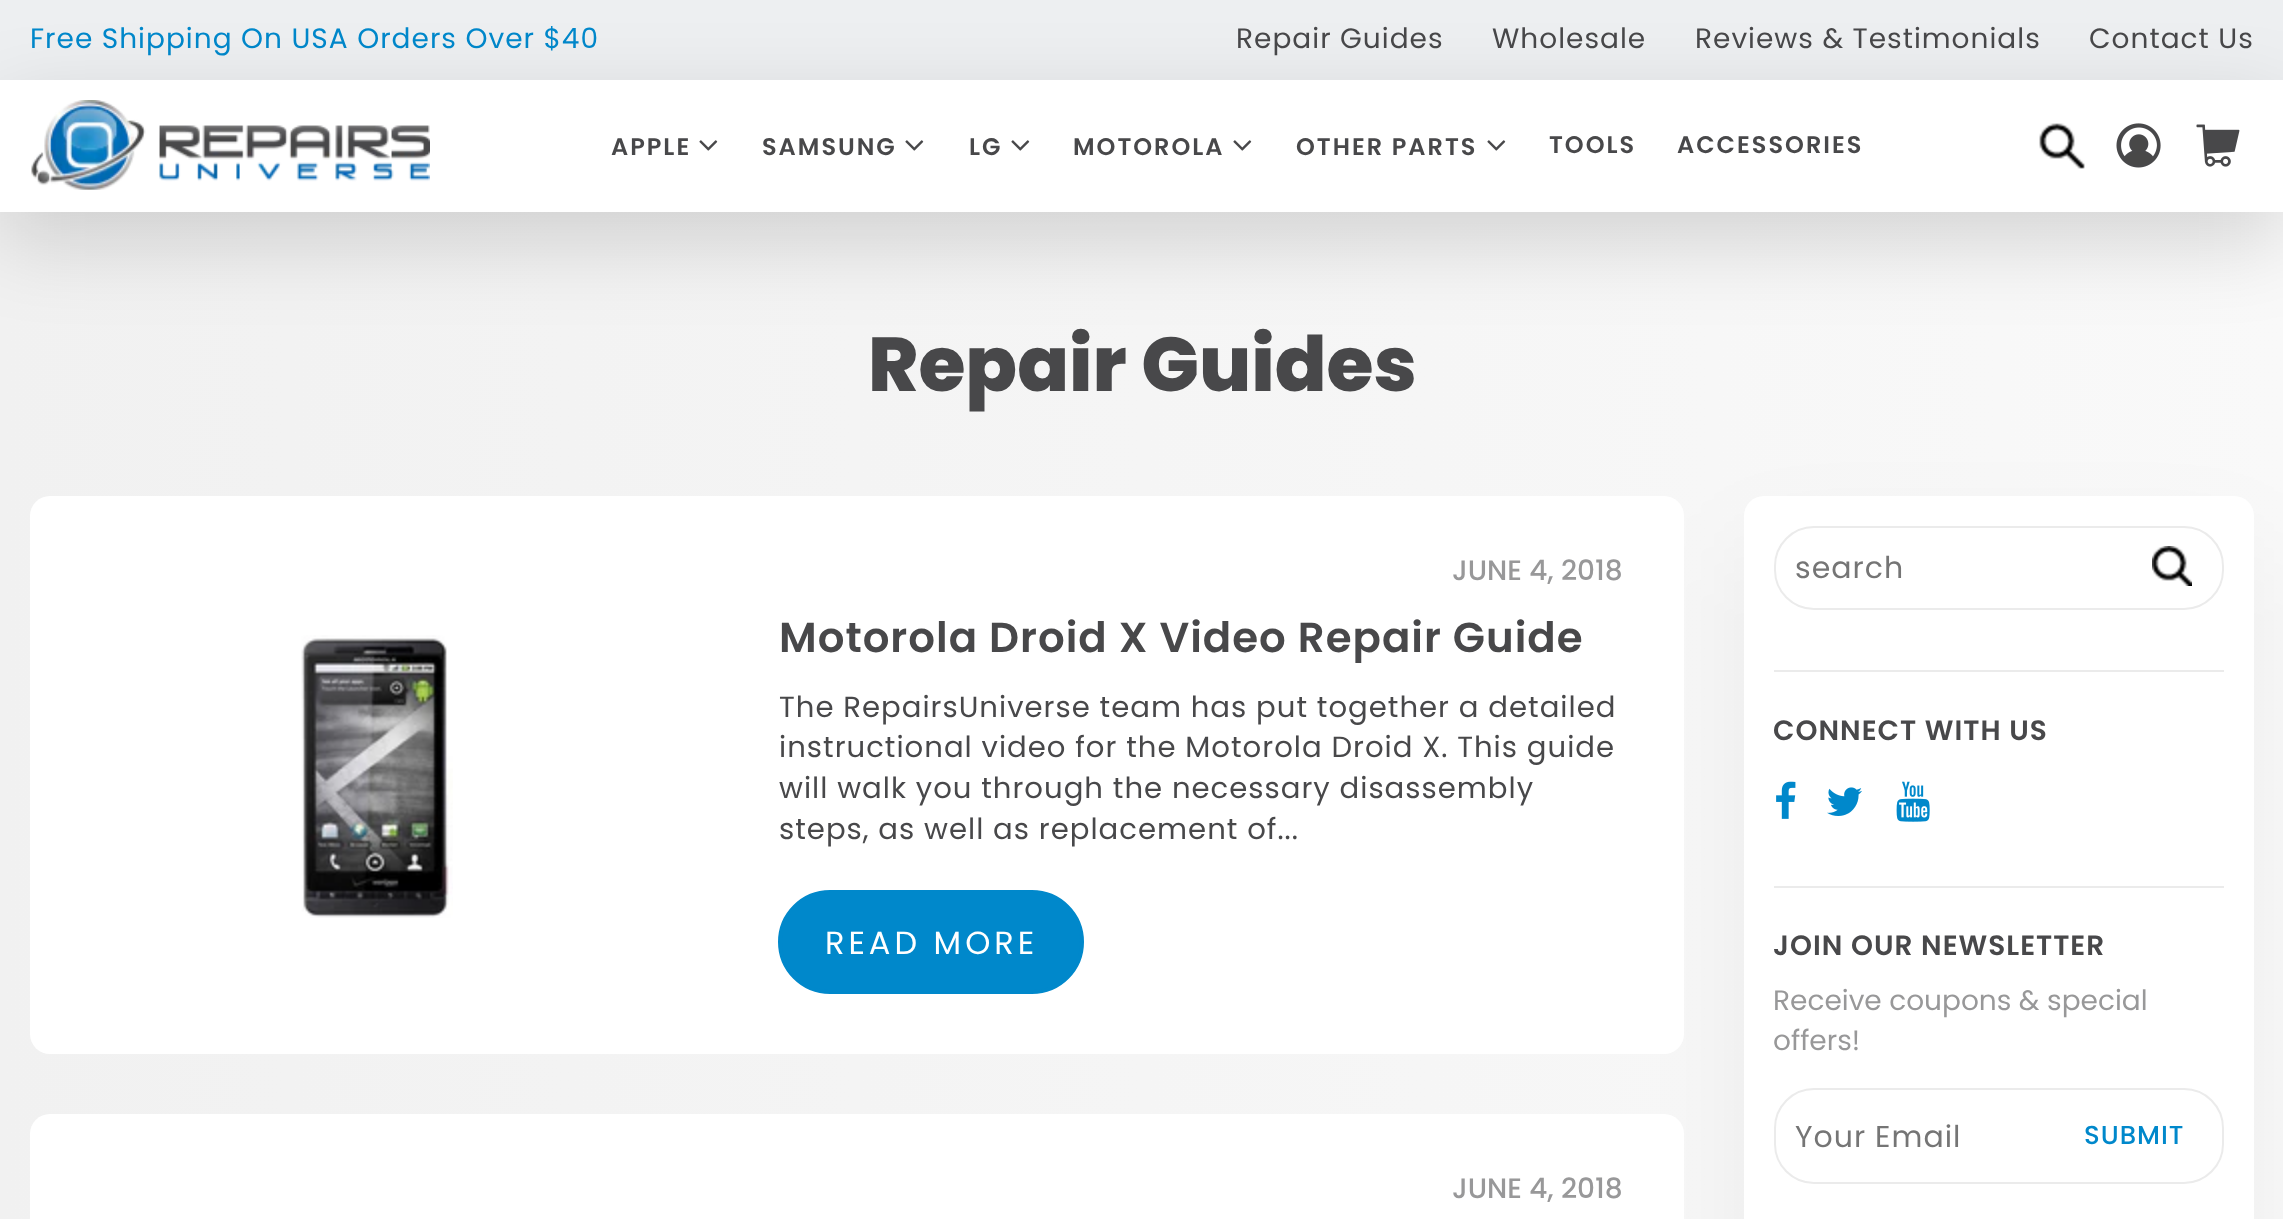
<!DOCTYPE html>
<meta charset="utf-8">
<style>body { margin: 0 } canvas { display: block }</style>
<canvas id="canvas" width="2283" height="1219"></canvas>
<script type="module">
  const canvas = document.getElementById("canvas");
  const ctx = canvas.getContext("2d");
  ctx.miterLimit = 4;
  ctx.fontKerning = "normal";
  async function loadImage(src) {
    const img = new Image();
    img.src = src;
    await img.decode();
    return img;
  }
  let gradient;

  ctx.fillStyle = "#ffffff";
  ctx.fillRect(0, 0, 2283, 1219);
  gradient = ctx.createLinearGradient(0, 0, 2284, 0);
  gradient.addColorStop(0, "#f1f1f1");
  gradient.addColorStop(1, "#f9f9f9");
  ctx.fillStyle = gradient;
  ctx.fillRect(0, 212, 2283, 1007);
  ctx.fillStyle = "#edeff1";
  ctx.fillRect(0, 0, 2283, 80);
  ctx.letterSpacing = "1px";
  ctx.font = "28px Poppins";
  ctx.fillStyle = "#0088cb";
  ctx.fillText("Free Shipping On USA Orders Over $40", 30, 48);
  ctx.fillStyle = "#48484a";
  ctx.fillText("Repair Guides", 1236, 48);
  ctx.fillText("Wholesale", 1492, 48);
  ctx.fillText("Reviews & Testimonials", 1695, 48);
  ctx.fillText("Contact Us", 2089, 48);
  ctx.save();
  ctx.beginPath();
  ctx.moveTo(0, 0);
  ctx.lineTo(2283, 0);
  ctx.lineTo(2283, 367);
  ctx.lineTo(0, 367);
  ctx.closePath();
  ctx.moveTo(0, 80);
  ctx.lineTo(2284, 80);
  ctx.lineTo(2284, 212);
  ctx.lineTo(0, 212);
  ctx.closePath();
  ctx.clip("evenodd");
  ctx.fillStyle = "rgba(0, 0, 0, 0.15)";
  ctx.filter = "blur(42px)";
  ctx.beginPath();
  ctx.rect(0, 108, 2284, 132);
  ctx.fill();
  ctx.filter = "none";
  ctx.restore();
  ctx.drawImage(await loadImage("img1.png"), 31, 100, 399, 90);
  ctx.letterSpacing = "2px";
  ctx.font = "600 24px Poppins";
  ctx.fillText("APPLE", 611, 155);
  ctx.drawImage(await loadImage("img2.png"), 699, 140, 19, 11);
  ctx.fillText("SAMSUNG", 762, 155);
  ctx.drawImage(await loadImage("img2.png"), 905, 140, 19, 11);
  ctx.fillText("LG", 969, 155);
  ctx.drawImage(await loadImage("img2.png"), 1011, 140, 19, 11);
  ctx.fillText("MOTOROLA", 1073, 155);
  ctx.drawImage(await loadImage("img2.png"), 1233, 140, 19, 11);
  ctx.fillText("OTHER PARTS", 1296, 155);
  ctx.drawImage(await loadImage("img2.png"), 1487, 140, 19, 11);
  ctx.fillText("TOOLS", 1549, 153);
  ctx.fillText("ACCESSORIES", 1677, 153);
  ctx.drawImage(await loadImage("img3.png"), 2039, 123, 46, 46);
  ctx.drawImage(await loadImage("img4.png"), 2116, 123, 45, 45);
  ctx.drawImage(await loadImage("img5.png"), 2196, 124, 44, 43);
  ctx.letterSpacing = "0px";
  ctx.font = "800 76.25px Poppins";
  ctx.fillText("Repair Guides", 868, 391);
  ctx.fillStyle = "rgba(0, 0, 0, 0.05)";
  ctx.filter = "blur(50px)";
  ctx.beginPath();
  ctx.roundRect(1744, 546, 510, 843, 20);
  ctx.fill();
  ctx.filter = "none";
  ctx.fillStyle = "#ffffff";
  ctx.beginPath();
  ctx.roundRect(30, 496, 1654, 558, 20);
  ctx.fill();
  ctx.drawImage(await loadImage("img6.png"), 301, 635, 152, 283);
  ctx.font = "500 28px Poppins";
  ctx.fillStyle = "#989899";
  ctx.fillText("JUNE 4, 2018", 1452, 580);
  ctx.letterSpacing = "1px";
  ctx.font = "600 41.9px Poppins";
  ctx.fillStyle = "#48484a";
  ctx.fillText("Motorola Droid X Video Repair Guide", 779, 652);
  ctx.font = "29.15px Poppins";
  ctx.fillText("The RepairsUniverse team has put together a detailed", 779, 717);
  ctx.fillText("instructional video for the Motorola Droid X. This guide", 779, 757);
  ctx.fillText("will walk you through the necessary disassembly", 779, 798);
  ctx.fillText("steps, as well as replacement of...", 779, 839);
  ctx.fillStyle = "#0088cb";
  ctx.beginPath();
  ctx.roundRect(780, 892, 302, 100, 50);
  ctx.fill();
  ctx.strokeStyle = "#0088cb";
  ctx.lineWidth = 4;
  ctx.stroke();
  ctx.letterSpacing = "4px";
  ctx.font = "32px Poppins";
  ctx.fillStyle = "#ffffff";
  ctx.fillText("READ MORE", 825, 954);
  ctx.beginPath();
  ctx.roundRect(30, 1114, 1654, 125, 20);
  ctx.fill();
  ctx.letterSpacing = "0px";
  ctx.font = "500 28px Poppins";
  ctx.fillStyle = "#989899";
  ctx.fillText("JUNE 4, 2018", 1452, 1198);
  ctx.fillStyle = "#ffffff";
  ctx.beginPath();
  ctx.roundRect(1744, 496, 510, 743, 20);
  ctx.fill();
  ctx.fillStyle = "#ebebeb";
  ctx.fillRect(1774, 670, 450, 2);
  ctx.beginPath();
  ctx.roundRect(1775, 527, 448, 82, 39);
  ctx.strokeStyle = "#ebebeb";
  ctx.lineWidth = 2;
  ctx.stroke();
  ctx.letterSpacing = "1px";
  ctx.font = "30px Poppins";
  ctx.fillStyle = "#757575";
  ctx.fillText("search", 1795, 578);
  ctx.drawImage(await loadImage("img7.png"), 2152, 546, 40, 40);
  ctx.fillStyle = "#ebebeb";
  ctx.fillRect(1774, 886, 450, 2);
  ctx.font = "600 28px Poppins";
  ctx.fillStyle = "#48484a";
  ctx.fillText("CONNECT WITH US", 1773, 740);
  ctx.drawImage(await loadImage("img8.png"), 1776, 781, 20, 38);
  ctx.drawImage(await loadImage("img9.png"), 1827, 787, 35, 29);
  ctx.drawImage(await loadImage("img10.png"), 1896, 781, 34, 41);
  ctx.fillText("JOIN OUR NEWSLETTER", 1773, 955);
  ctx.letterSpacing = "0px";
  ctx.font = "28px Poppins";
  ctx.fillStyle = "#989899";
  ctx.fillText("Receive coupons & special", 1773, 1010);
  ctx.fillText("offers!", 1773, 1050);
  ctx.beginPath();
  ctx.roundRect(1775, 1089, 448, 94, 39);
  ctx.stroke();
  ctx.letterSpacing = "1px";
  ctx.font = "30px Poppins";
  ctx.fillStyle = "#757575";
  ctx.fillText("Your Email", 1795, 1147);
  ctx.font = "500 26px Poppins";
  ctx.fillStyle = "#0088cb";
  ctx.fillText("SUBMIT", 2084, 1144);
</script>
